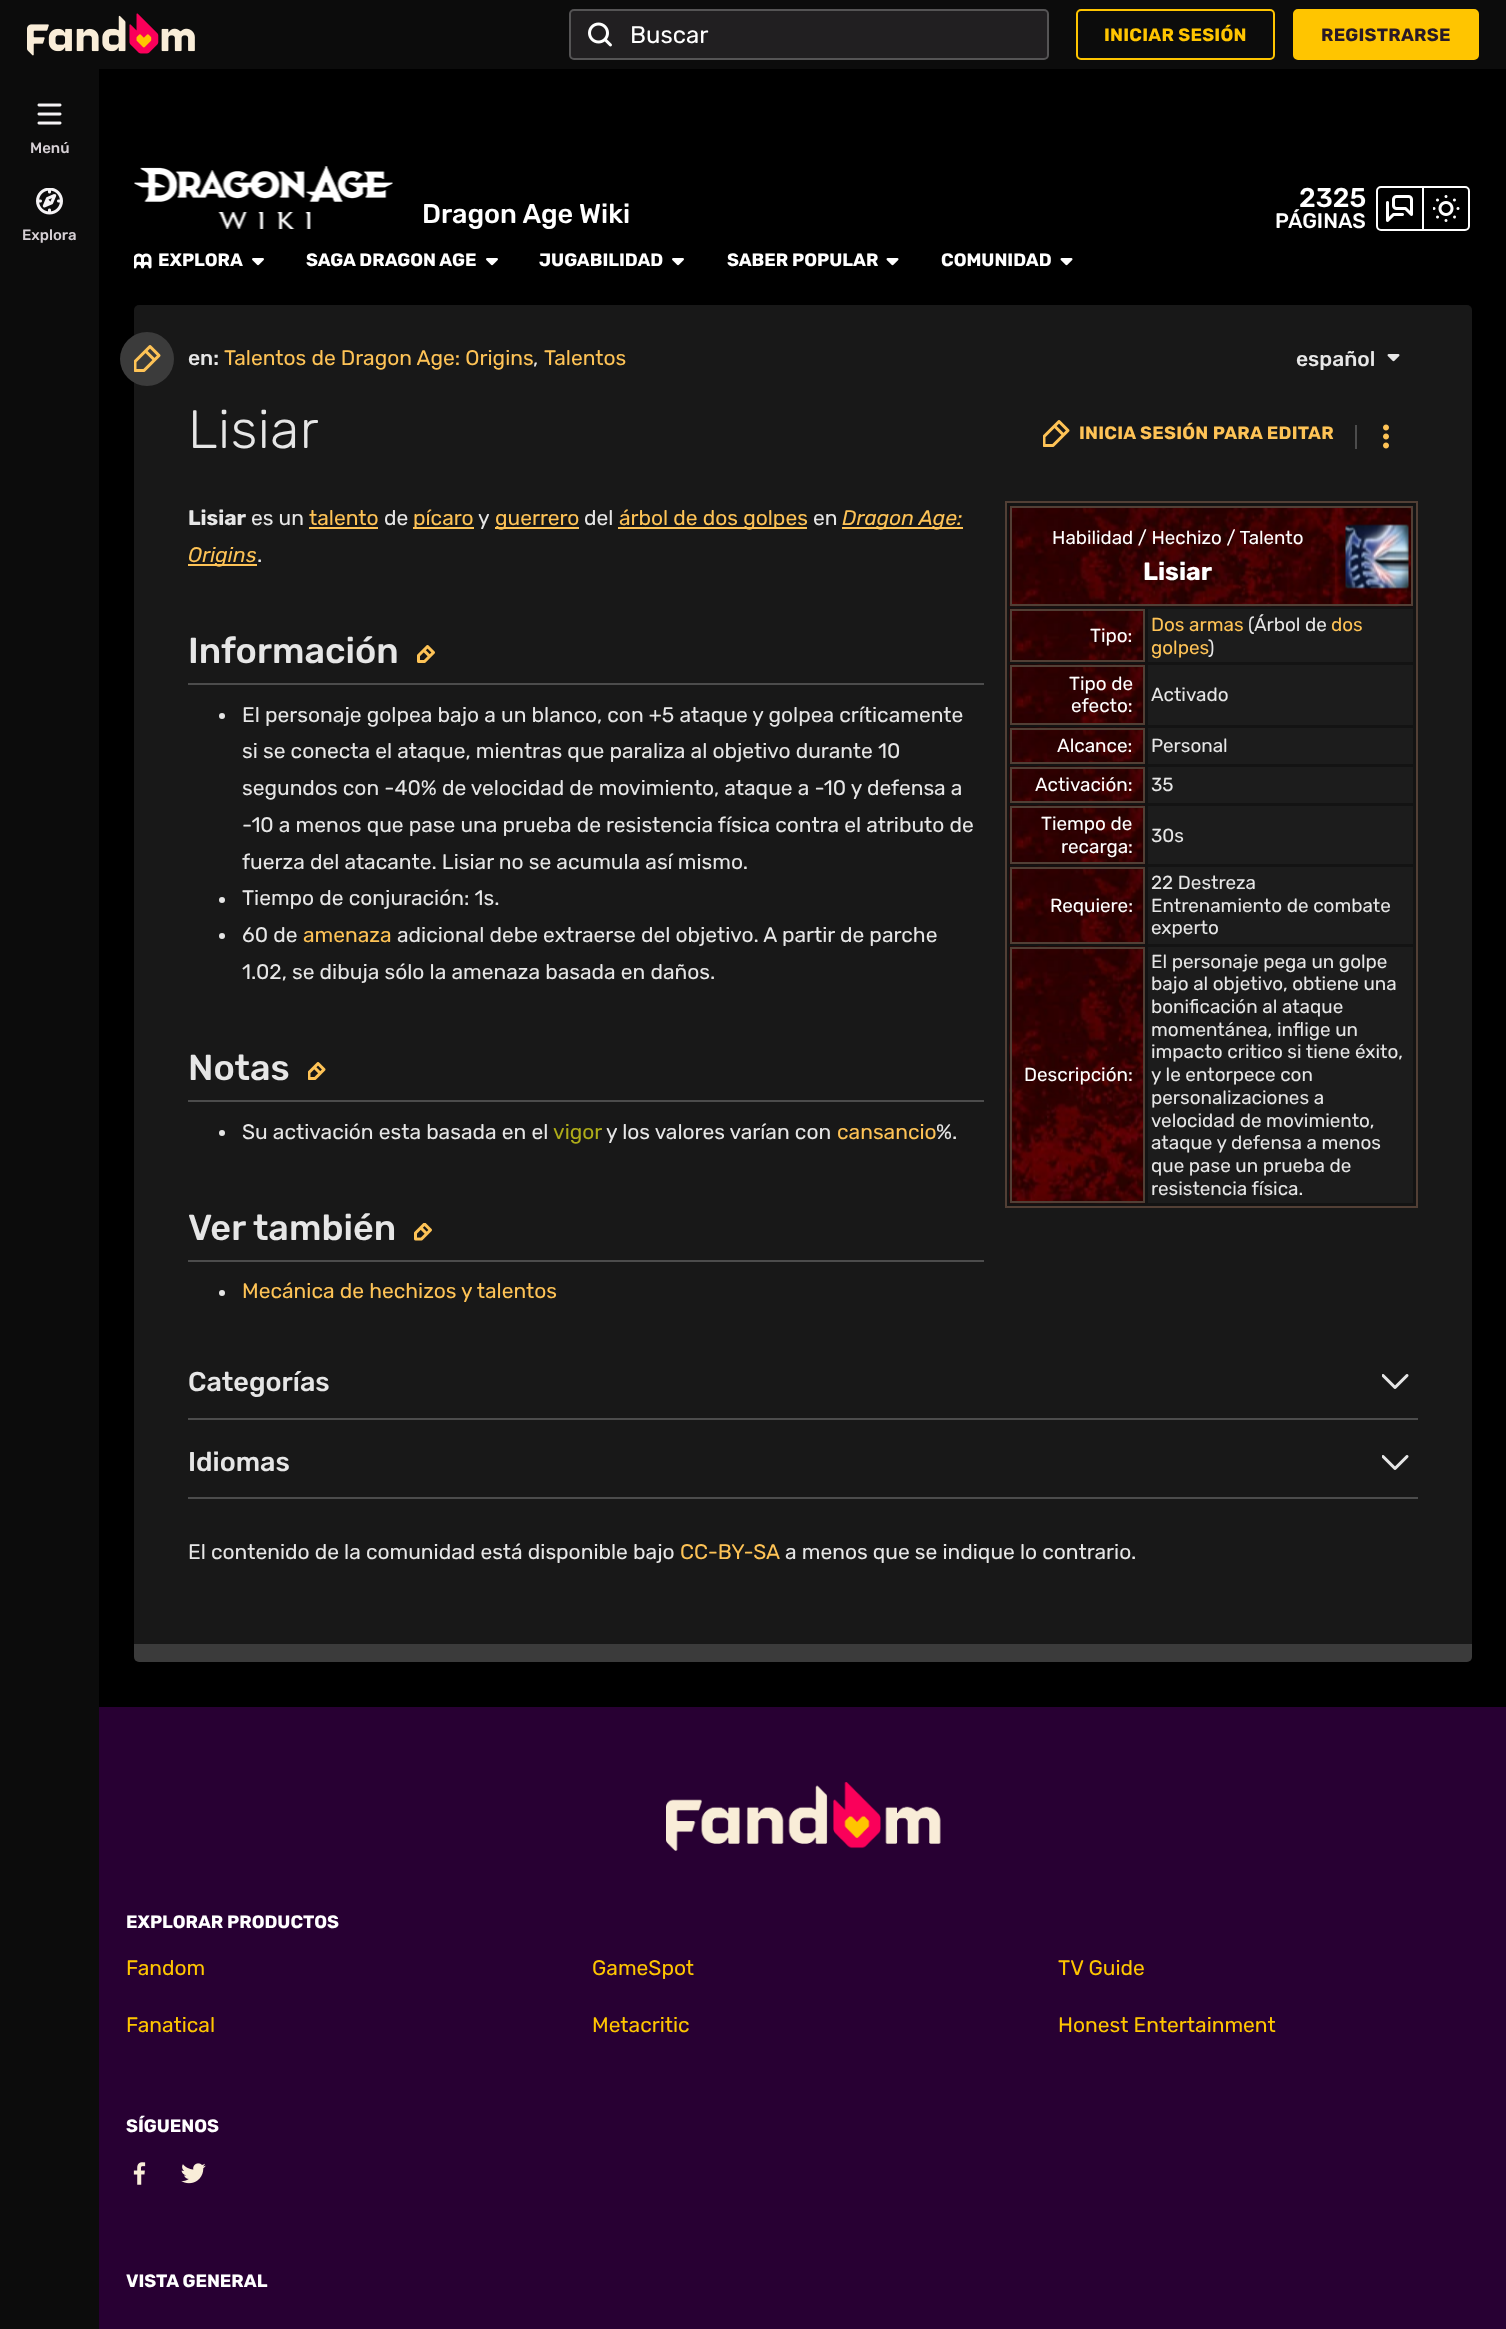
<!DOCTYPE html>
<meta charset="utf-8">
<style>body { margin: 0 } canvas { display: block }</style>
<canvas id="canvas" width="1506" height="2329"></canvas>
<script type="module">
  const canvas = document.getElementById("canvas");
  const ctx = canvas.getContext("2d");
  ctx.miterLimit = 4;
  ctx.fontKerning = "normal";
  async function loadImage(src) {
    const img = new Image();
    img.src = src;
    await img.decode();
    return img;
  }

  ctx.fillStyle = "#000000";
  ctx.fillRect(0, 0, 1506, 2329);
  ctx.fillStyle = "#0c0c0c";
  ctx.fillRect(0, 0, 1506, 69);
  ctx.drawImage(await loadImage("img1.png"), 27, 13, 168, 43);
  ctx.fillStyle = "#211f21";
  ctx.beginPath();
  ctx.roundRect(569, 9, 480, 51, 5);
  ctx.fill();
  ctx.beginPath();
  ctx.roundRect(570, 10, 478, 49, 4);
  ctx.strokeStyle = "rgba(245, 243, 245, 0.25)";
  ctx.lineWidth = 2;
  ctx.stroke();
  ctx.drawImage(await loadImage("img2.png"), 588, 22, 24, 25);
  ctx.font = "24px Rubik";
  ctx.fillStyle = "#ffffff";
  ctx.fillText("Buscar", 630, 43);
  ctx.beginPath();
  ctx.roundRect(1077, 10, 197, 49, 4);
  ctx.strokeStyle = "#ffc500";
  ctx.stroke();
  ctx.letterSpacing = "0.25px";
  ctx.font = "bold 18px Rubik";
  ctx.fillStyle = "#ffc500";
  ctx.fillText("INICIAR SESIÓN", 1104, 41);
  ctx.beginPath();
  ctx.roundRect(1294, 10, 184, 49, 4);
  ctx.fill();
  ctx.stroke();
  ctx.fillStyle = "#291927";
  ctx.fillText("REGISTRARSE", 1321, 41);
  ctx.fillStyle = "#0c0c0c";
  ctx.fillRect(0, 69, 99, 2260);
  ctx.drawImage(await loadImage("img3.png"), 37, 103, 25, 22);
  ctx.letterSpacing = "0px";
  ctx.font = "500 15px Rubik";
  ctx.fillStyle = "#d6d0d5";
  ctx.fillText("Menú", 30, 153);
  ctx.drawImage(await loadImage("img4.png"), 36, 188, 27, 27);
  ctx.fillText("Explora", 22, 240);
  ctx.drawImage(await loadImage("img5.png"), 134, 166, 259, 63);
  ctx.font = "500 27px Rubik";
  ctx.fillStyle = "#ffffff";
  ctx.fillText("Dragon Age Wiki", 422, 223);
  ctx.fillText("2325", 1299, 207);
  ctx.font = "500 21px Rubik";
  ctx.fillText("PÁGINAS", 1275, 228);
  ctx.beginPath();
  ctx.roundRect(1377, 187, 46, 43, [4, 0, 0, 4]);
  ctx.strokeStyle = "#ffffff";
  ctx.stroke();
  ctx.drawImage(await loadImage("img6.png"), 1386, 195, 27, 27);
  ctx.beginPath();
  ctx.roundRect(1423, 187, 46, 43, [0, 4, 4, 0]);
  ctx.stroke();
  ctx.drawImage(await loadImage("img7.png"), 1433, 195, 27, 27);
  ctx.drawImage(await loadImage("img8.png"), 134, 253, 18, 16);
  ctx.font = "bold 18px Rubik";
  ctx.fillText("EXPLORA", 158, 266);
  ctx.drawImage(await loadImage("img9.png"), 252, 258, 12, 8);
  ctx.fillText("SAGA DRAGON AGE", 306, 266);
  ctx.drawImage(await loadImage("img9.png"), 486, 258, 12, 8);
  ctx.fillText("JUGABILIDAD", 539, 266);
  ctx.drawImage(await loadImage("img9.png"), 672, 258, 12, 8);
  ctx.fillText("SABER POPULAR", 727, 266);
  ctx.drawImage(await loadImage("img10.png"), 886, 258, 13, 8);
  ctx.fillText("COMUNIDAD", 941, 266);
  ctx.drawImage(await loadImage("img10.png"), 1060, 258, 13, 8);
  ctx.fillStyle = "#181818";
  ctx.beginPath();
  ctx.roundRect(134, 305, 1338, 1339, [5, 5, 0, 0]);
  ctx.fill();
  ctx.fillStyle = "#3b3b3b";
  ctx.beginPath();
  ctx.arc(147, 359, 27, 0, Math.PI * 2);
  ctx.fill();
  ctx.drawImage(await loadImage("img11.png"), 134, 345, 27, 27);
  ctx.font = "500 21px Rubik";
  ctx.fillStyle = "#e6e6e6";
  ctx.fillText("en:", 188, 365);
  ctx.font = "21px Rubik";
  ctx.fillStyle = "#fec356";
  ctx.fillText("Talentos de Dragon Age: Origins", 224, 365);
  ctx.fillStyle = "#e6e6e6";
  ctx.fillText(",", 533, 365);
  ctx.fillStyle = "#fec356";
  ctx.fillText("Talentos", 544, 365);
  ctx.font = "500 21px Rubik";
  ctx.fillStyle = "#e6e6e6";
  ctx.fillText("español", 1296, 366);
  ctx.drawImage(await loadImage("img12.png"), 1387, 354, 13, 8);
  ctx.letterSpacing = "0.5px";
  ctx.font = "300 54px Rubik";
  ctx.fillText("Lisiar", 188, 448);
  ctx.drawImage(await loadImage("img13.png"), 1043, 420, 27, 27);
  ctx.letterSpacing = "0.25px";
  ctx.font = "bold 18px Rubik";
  ctx.fillStyle = "#fec356";
  ctx.fillText("INICIA SESIÓN PARA EDITAR", 1079, 439);
  ctx.fillStyle = "#4c4c4c";
  ctx.fillRect(1355, 425, 2, 24);
  ctx.drawImage(await loadImage("img14.png"), 1383, 424, 6, 25);
  ctx.letterSpacing = "0px";
  ctx.font = "bold 21px Rubik";
  ctx.fillStyle = "#e6e6e6";
  ctx.fillText("Lisiar", 188, 525);
  ctx.font = "21px Rubik";
  ctx.fillText("es un", 251, 525);
  ctx.fillStyle = "#fec356";
  ctx.fillText("talento", 309, 525);
  ctx.fillRect(309, 527, 69, 2);
  ctx.fillStyle = "#e6e6e6";
  ctx.fillText("de", 384, 525);
  ctx.fillStyle = "#fec356";
  ctx.fillRect(413, 527, 61, 2);
  ctx.fillText("pícaro", 413, 525);
  ctx.fillStyle = "#e6e6e6";
  ctx.fillText("y", 478, 525);
  ctx.fillStyle = "#fec356";
  ctx.fillRect(495, 527, 84, 2);
  ctx.fillText("guerrero", 495, 525);
  ctx.fillStyle = "#e6e6e6";
  ctx.fillText("del", 584, 525);
  ctx.fillStyle = "#fec356";
  ctx.fillRect(618, 527, 189, 2);
  ctx.fillText("árbol de dos golpes", 619, 525);
  ctx.fillStyle = "#e6e6e6";
  ctx.fillText("en", 813, 525);
  ctx.fillStyle = "#fec356";
  ctx.fillRect(842, 527, 121, 2);
  ctx.font = "italic 21px Rubik";
  ctx.fillText("Dragon Age:", 842, 525);
  ctx.fillRect(188, 564, 69, 2);
  ctx.fillText("Origins", 188, 562);
  ctx.font = "21px Rubik";
  ctx.fillStyle = "#e6e6e6";
  ctx.fillText(".", 257, 562);
  ctx.fillStyle = "#131313";
  ctx.beginPath();
  ctx.rect(1006, 502, 411, 705);
  ctx.fill();
  ctx.strokeStyle = "#523f35";
  ctx.stroke();
  ctx.drawImage(await loadImage("img15.png"), 1009, 506, 404, 101);
  ctx.strokeRect(1011, 507, 401, 98);
  ctx.font = "18.75px Rubik";
  ctx.fillStyle = "#ffffff";
  ctx.fillText("Habilidad / Hechizo / Talento", 1052, 544);
  ctx.font = "bold 25px Rubik";
  ctx.fillText("Lisiar", 1143, 580);
  ctx.drawImage(await loadImage("img16.png"), 1345, 524, 64, 65);
  ctx.drawImage(await loadImage("img17.png"), 1009, 608, 136, 54);
  ctx.strokeRect(1011, 610, 133, 51);
  ctx.font = "18.9px Rubik";
  ctx.fillText("Tipo:", 1090, 642);
  ctx.fillStyle = "#1c1c1c";
  ctx.fillRect(1148, 609, 265, 53);
  ctx.fillStyle = "#fec356";
  ctx.fillText("Dos armas", 1151, 631);
  ctx.fillStyle = "#e6e6e6";
  ctx.fillText("(Árbol de", 1248, 631);
  ctx.fillStyle = "#fec356";
  ctx.fillText("dos", 1331, 631);
  ctx.fillText("golpes", 1151, 654);
  ctx.fillStyle = "#e6e6e6";
  ctx.fillText(")", 1208, 654);
  ctx.drawImage(await loadImage("img18.png"), 1009, 664, 136, 61);
  ctx.strokeRect(1011, 666, 133, 58);
  ctx.fillStyle = "#ffffff";
  ctx.fillText("Tipo de", 1069, 690);
  ctx.fillText("efecto:", 1071, 712);
  ctx.fillStyle = "#1c1c1c";
  ctx.fillRect(1148, 665, 265, 60);
  ctx.fillStyle = "#e6e6e6";
  ctx.fillText("Activado", 1151, 701);
  ctx.drawImage(await loadImage("img19.png"), 1009, 727, 136, 37);
  ctx.strokeRect(1011, 729, 133, 34);
  ctx.fillStyle = "#ffffff";
  ctx.fillText("Alcance:", 1057, 752);
  ctx.fillStyle = "#1c1c1c";
  ctx.fillRect(1148, 728, 265, 36);
  ctx.fillStyle = "#e6e6e6";
  ctx.fillText("Personal", 1151, 752);
  ctx.drawImage(await loadImage("img20.png"), 1009, 766, 136, 37);
  ctx.strokeRect(1011, 768, 133, 34);
  ctx.fillStyle = "#ffffff";
  ctx.fillText("Activación:", 1035, 791);
  ctx.fillStyle = "#1c1c1c";
  ctx.fillRect(1148, 767, 265, 36);
  ctx.fillStyle = "#e6e6e6";
  ctx.fillText("35", 1151, 791);
  ctx.drawImage(await loadImage("img21.png"), 1009, 805, 136, 60);
  ctx.strokeRect(1011, 807, 133, 56);
  ctx.fillStyle = "#ffffff";
  ctx.fillText("Tiempo de", 1041, 830);
  ctx.fillText("recarga:", 1061, 853);
  ctx.fillStyle = "#1c1c1c";
  ctx.fillRect(1148, 806, 265, 58);
  ctx.fillStyle = "#e6e6e6";
  ctx.fillText("30s", 1151, 842);
  ctx.drawImage(await loadImage("img22.png"), 1009, 866, 136, 78);
  ctx.strokeRect(1011, 868, 133, 75);
  ctx.fillStyle = "#ffffff";
  ctx.fillText("Requiere:", 1050, 912);
  ctx.fillStyle = "#1c1c1c";
  ctx.fillRect(1148, 867, 265, 77);
  ctx.fillStyle = "#e6e6e6";
  ctx.fillText("22 Destreza", 1151, 889);
  ctx.fillText("Entrenamiento de combate", 1151, 912);
  ctx.fillText("experto", 1151, 934);
  ctx.drawImage(await loadImage("img23.png"), 1009, 946, 136, 258);
  ctx.strokeRect(1011, 948, 133, 254);
  ctx.fillStyle = "#ffffff";
  ctx.fillText("Descripción:", 1024, 1081);
  ctx.fillStyle = "#1c1c1c";
  ctx.fillRect(1148, 947, 265, 256);
  ctx.fillStyle = "#e6e6e6";
  ctx.fillText("El personaje pega un golpe", 1151, 968);
  ctx.fillText("bajo al objetivo, obtiene una", 1151, 990);
  ctx.fillText("bonificación al ataque", 1151, 1013);
  ctx.fillText("momentánea, inflige un", 1151, 1036);
  ctx.fillText("impacto critico si tiene éxito,", 1151, 1058);
  ctx.fillText("y le entorpece con", 1151, 1081);
  ctx.fillText("personalizaciones a", 1151, 1104);
  ctx.fillText("velocidad de movimiento,", 1151, 1127);
  ctx.fillText("ataque y defensa a menos", 1151, 1149);
  ctx.fillText("que pase un prueba de", 1151, 1172);
  ctx.fillText("resistencia física.", 1151, 1195);
  ctx.fillStyle = "#4c4c4c";
  ctx.fillRect(188, 683, 796, 2);
  ctx.font = "500 36px Rubik";
  ctx.fillStyle = "#e6e6e6";
  ctx.fillText("Información", 188, 663);
  ctx.drawImage(await loadImage("img24.png"), 417, 645, 18, 18);
  ctx.beginPath();
  ctx.arc(222, 716, 3, 0, Math.PI * 2);
  ctx.fill();
  ctx.font = "21px Rubik";
  ctx.fillText("El personaje golpea bajo a un blanco, con +5 ataque y golpea críticamente", 242, 722);
  ctx.fillText("si se conecta el ataque, mientras que paraliza al objetivo durante 10", 242, 758);
  ctx.fillText("segundos con -40% de velocidad de movimiento, ataque a -10 y defensa a", 242, 795);
  ctx.fillText("-10 a menos que pase una prueba de resistencia física contra el atributo de", 242, 832);
  ctx.fillText("fuerza del atacante. Lisiar no se acumula así mismo.", 242, 869);
  ctx.beginPath();
  ctx.arc(222, 900, 3, 0, Math.PI * 2);
  ctx.fill();
  ctx.fillText("Tiempo de conjuración: 1s.", 242, 905);
  ctx.beginPath();
  ctx.arc(222, 936, 3, 0, Math.PI * 2);
  ctx.fill();
  ctx.fillText("60 de", 242, 942);
  ctx.fillStyle = "#fec356";
  ctx.fillText("amenaza", 303, 942);
  ctx.fillStyle = "#e6e6e6";
  ctx.fillText("adicional debe extraerse del objetivo. A partir de parche", 397, 942);
  ctx.fillText("1.02, se dibuja sólo la amenaza basada en daños.", 242, 979);
  ctx.fillStyle = "#4c4c4c";
  ctx.fillRect(188, 1100, 796, 2);
  ctx.font = "500 36px Rubik";
  ctx.fillStyle = "#e6e6e6";
  ctx.fillText("Notas", 188, 1080);
  ctx.drawImage(await loadImage("img25.png"), 308, 1062, 18, 18);
  ctx.beginPath();
  ctx.arc(222, 1133, 3, 0, Math.PI * 2);
  ctx.fill();
  ctx.font = "21px Rubik";
  ctx.fillText("Su activación esta basada en el", 242, 1139);
  ctx.fillStyle = "#aeac19";
  ctx.fillText("vigor", 553, 1139);
  ctx.fillStyle = "#e6e6e6";
  ctx.fillText("y los valores varían con", 606, 1139);
  ctx.fillStyle = "#fec356";
  ctx.fillText("cansancio", 837, 1139);
  ctx.fillStyle = "#e6e6e6";
  ctx.fillText("%.", 936, 1139);
  ctx.fillStyle = "#4c4c4c";
  ctx.fillRect(188, 1260, 796, 2);
  ctx.font = "500 36px Rubik";
  ctx.fillStyle = "#e6e6e6";
  ctx.fillText("Ver también", 188, 1240);
  ctx.drawImage(await loadImage("img26.png"), 414, 1223, 18, 18);
  ctx.beginPath();
  ctx.arc(222, 1293, 3, 0, Math.PI * 2);
  ctx.fill();
  ctx.font = "21px Rubik";
  ctx.fillStyle = "#fec356";
  ctx.fillText("Mecánica de hechizos y talentos", 242, 1298);
  ctx.fillStyle = "#4c4c4c";
  ctx.fillRect(188, 1418, 1230, 2);
  ctx.font = "500 27px Rubik";
  ctx.fillStyle = "#e6e6e6";
  ctx.fillText("Categorías", 188, 1391);
  ctx.drawImage(await loadImage("img27.png"), 1382, 1374, 27, 15);
  ctx.fillStyle = "#4c4c4c";
  ctx.fillRect(188, 1497, 1230, 2);
  ctx.fillStyle = "#e6e6e6";
  ctx.fillText("Idiomas", 188, 1471);
  ctx.drawImage(await loadImage("img27.png"), 1382, 1455, 27, 15);
  ctx.font = "21px Rubik";
  ctx.fillText("El contenido de la comunidad está disponible bajo", 188, 1559);
  ctx.fillStyle = "#fec356";
  ctx.fillText("CC-BY-SA", 680, 1559);
  ctx.fillStyle = "#e6e6e6";
  ctx.fillText("a menos que se indique lo contrario.", 785, 1559);
  ctx.fillStyle = "#3b3b3b";
  ctx.beginPath();
  ctx.roundRect(134, 1644, 1338, 18, [0, 0, 5, 5]);
  ctx.fill();
  ctx.fillStyle = "#280033";
  ctx.fillRect(99, 1707, 1407, 622);
  ctx.drawImage(await loadImage("img28.png"), 666, 1782, 275, 69);
  ctx.font = "bold 18px Rubik";
  ctx.fillStyle = "#ffffff";
  ctx.fillText("EXPLORAR PRODUCTOS", 126, 1928);
  ctx.font = "21px Rubik";
  ctx.fillStyle = "#ffc500";
  ctx.fillText("Fandom", 126, 1975);
  ctx.fillText("GameSpot", 592, 1975);
  ctx.fillText("TV Guide", 1058, 1975);
  ctx.fillText("Fanatical", 126, 2032);
  ctx.fillText("Metacritic", 592, 2032);
  ctx.fillText("Honest Entertainment", 1058, 2032);
  ctx.font = "bold 18px Rubik";
  ctx.fillStyle = "#ffffff";
  ctx.fillText("SÍGUENOS", 126, 2132);
  ctx.drawImage(await loadImage("img29.png"), 133, 2162, 13, 23);
  ctx.drawImage(await loadImage("img30.png"), 181, 2163, 25, 21);
  ctx.fillText("VISTA GENERAL", 126, 2287);
</script>
